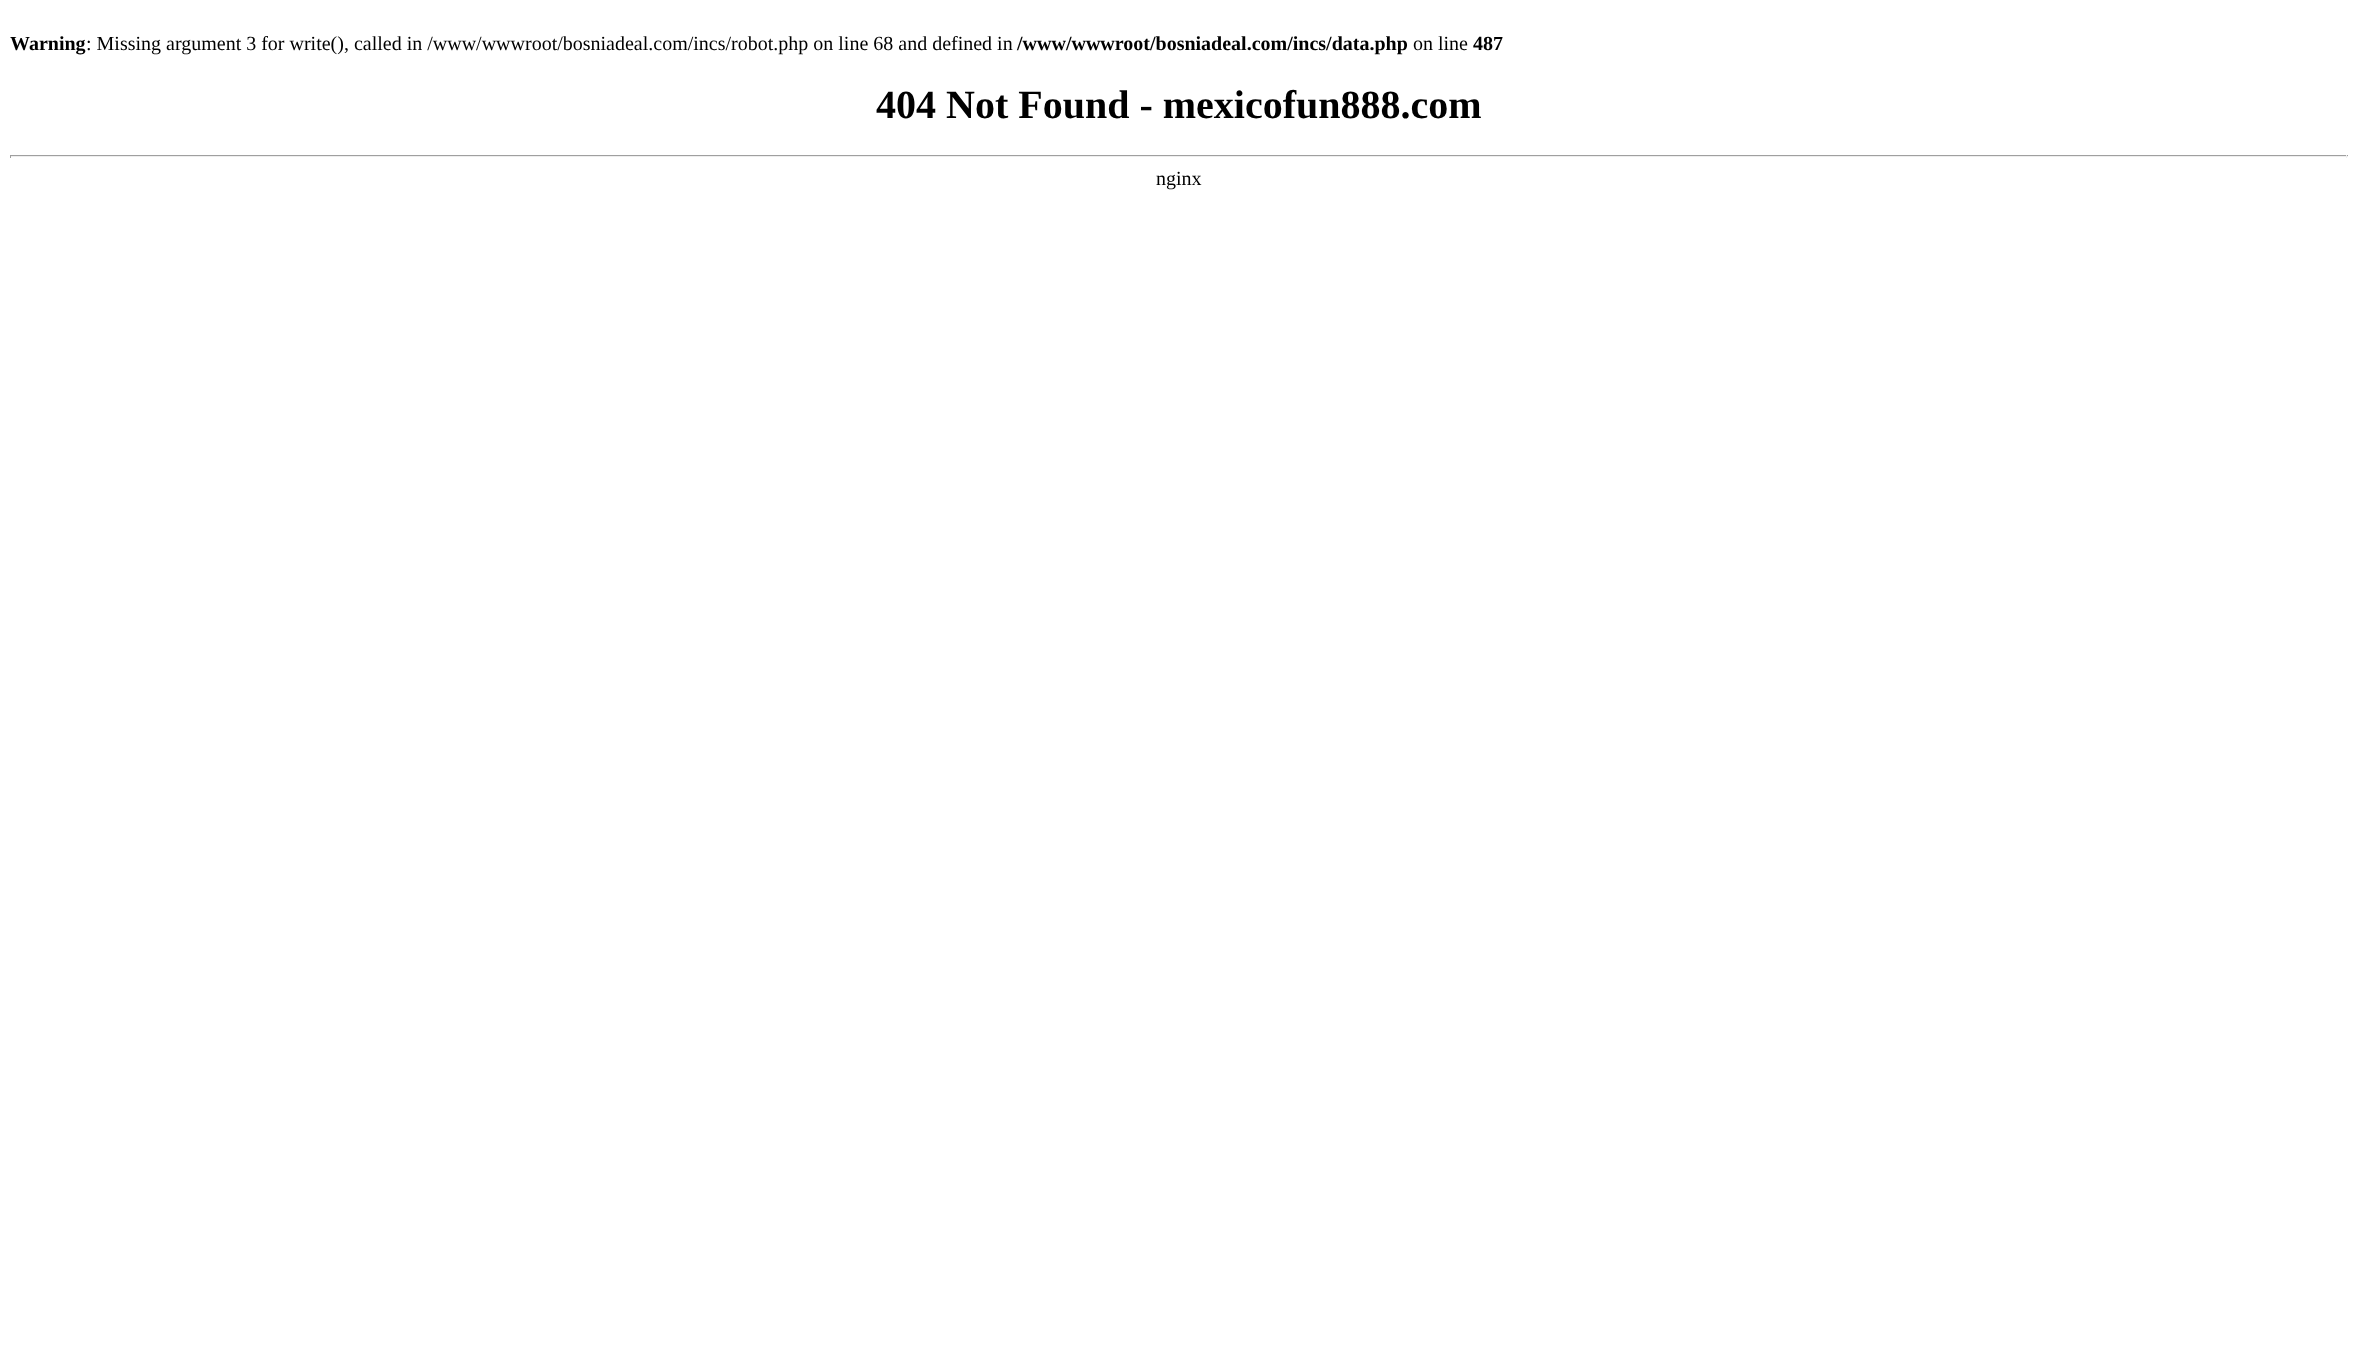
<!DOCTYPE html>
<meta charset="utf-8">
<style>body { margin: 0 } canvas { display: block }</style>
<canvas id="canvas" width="2357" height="1350"></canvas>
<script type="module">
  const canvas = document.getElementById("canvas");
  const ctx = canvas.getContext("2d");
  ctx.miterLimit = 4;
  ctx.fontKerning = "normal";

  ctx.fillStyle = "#ffffff";
  ctx.fillRect(0, 0, 2357, 1350);
  ctx.font = "bold 20px Liberation Serif";
  ctx.fillStyle = "#000000";
  ctx.fillText("Warning", 10, 50);
  ctx.font = "20px Liberation Serif";
  ctx.fillText(": Missing argument 3 for write(), called in /www/wwwroot/bosniadeal.com/incs/robot.php on line 68 and defined in", 86, 50);
  ctx.font = "bold 20px Liberation Serif";
  ctx.fillText("/www/wwwroot/bosniadeal.com/incs/data.php", 1017, 50);
  ctx.font = "20px Liberation Serif";
  ctx.fillText("on line", 1413, 50);
  ctx.font = "bold 20px Liberation Serif";
  ctx.fillText("487", 1473, 50);
  ctx.font = "bold 40px Liberation Serif";
  ctx.fillText("404 Not Found - mexicofun888.com", 876, 118);
  ctx.fillStyle = "#9f9f9f";
  ctx.fillRect(10, 155, 2338, 1);
  ctx.fillStyle = "#eeeeee";
  ctx.fillRect(2346, 155, 1, 3);
  ctx.fillRect(10, 156, 2338, 1);
  ctx.fillStyle = "#9f9f9f";
  ctx.fillRect(10, 155, 1, 3);
  ctx.font = "20px Liberation Serif";
  ctx.fillStyle = "#000000";
  ctx.fillText("nginx", 1156, 185);
</script>
